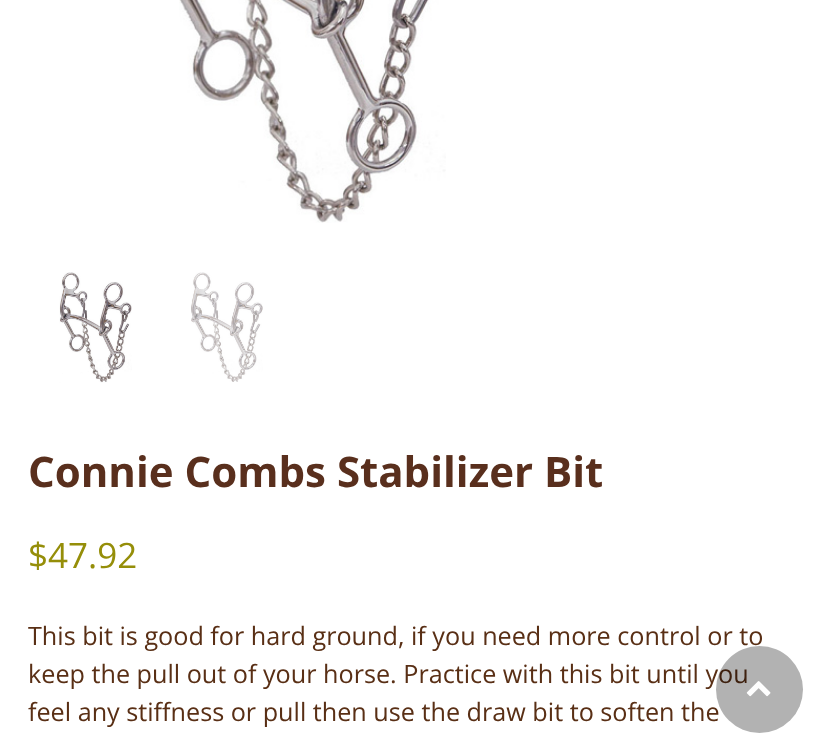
<!DOCTYPE html>
<meta charset="utf-8">
<style>body { margin: 0 } canvas { display: block }</style>
<canvas id="canvas" width="820" height="750"></canvas>
<script type="module">
  const canvas = document.getElementById("canvas");
  const ctx = canvas.getContext("2d");
  ctx.miterLimit = 4;
  ctx.fontKerning = "normal";
  async function loadImage(src) {
    const img = new Image();
    img.src = src;
    await img.decode();
    return img;
  }

  ctx.fillStyle = "#ffffff";
  ctx.fillRect(0, 0, 820, 750);
  ctx.drawImage(await loadImage("img1.png"), 179, 0, 267, 223);
  ctx.drawImage(await loadImage("img2.png"), 59, 272, 73, 111);
  ctx.drawImage(await loadImage("img3.png"), 191, 272, 72, 110);
  ctx.font = "bold 42px Open Sans";
  ctx.fillStyle = "#592f1d";
  ctx.fillText("Connie Combs Stabilizer Bit", 28, 487);
  ctx.font = "35px Open Sans";
  ctx.fillStyle = "#958e09";
  ctx.fillText("$47.92", 28, 568);
  ctx.font = "25.2px Open Sans";
  ctx.fillStyle = "#592f15";
  ctx.fillText("This bit is good for hard ground, if you need more control or to", 28, 645);
  ctx.fillText("keep the pull out of your horse. Practice with this bit until you", 28, 683);
  ctx.fillText("feel any stiffness or pull then use the draw bit to soften the", 28, 721);
  ctx.fillStyle = "rgba(0, 0, 0, 0.3)";
  ctx.beginPath();
  ctx.arc(759.5, 689.5, 43.5, 0, Math.PI * 2);
  ctx.fill();
  ctx.drawImage(await loadImage("img4.png"), 746, 681, 25, 16);
</script>
